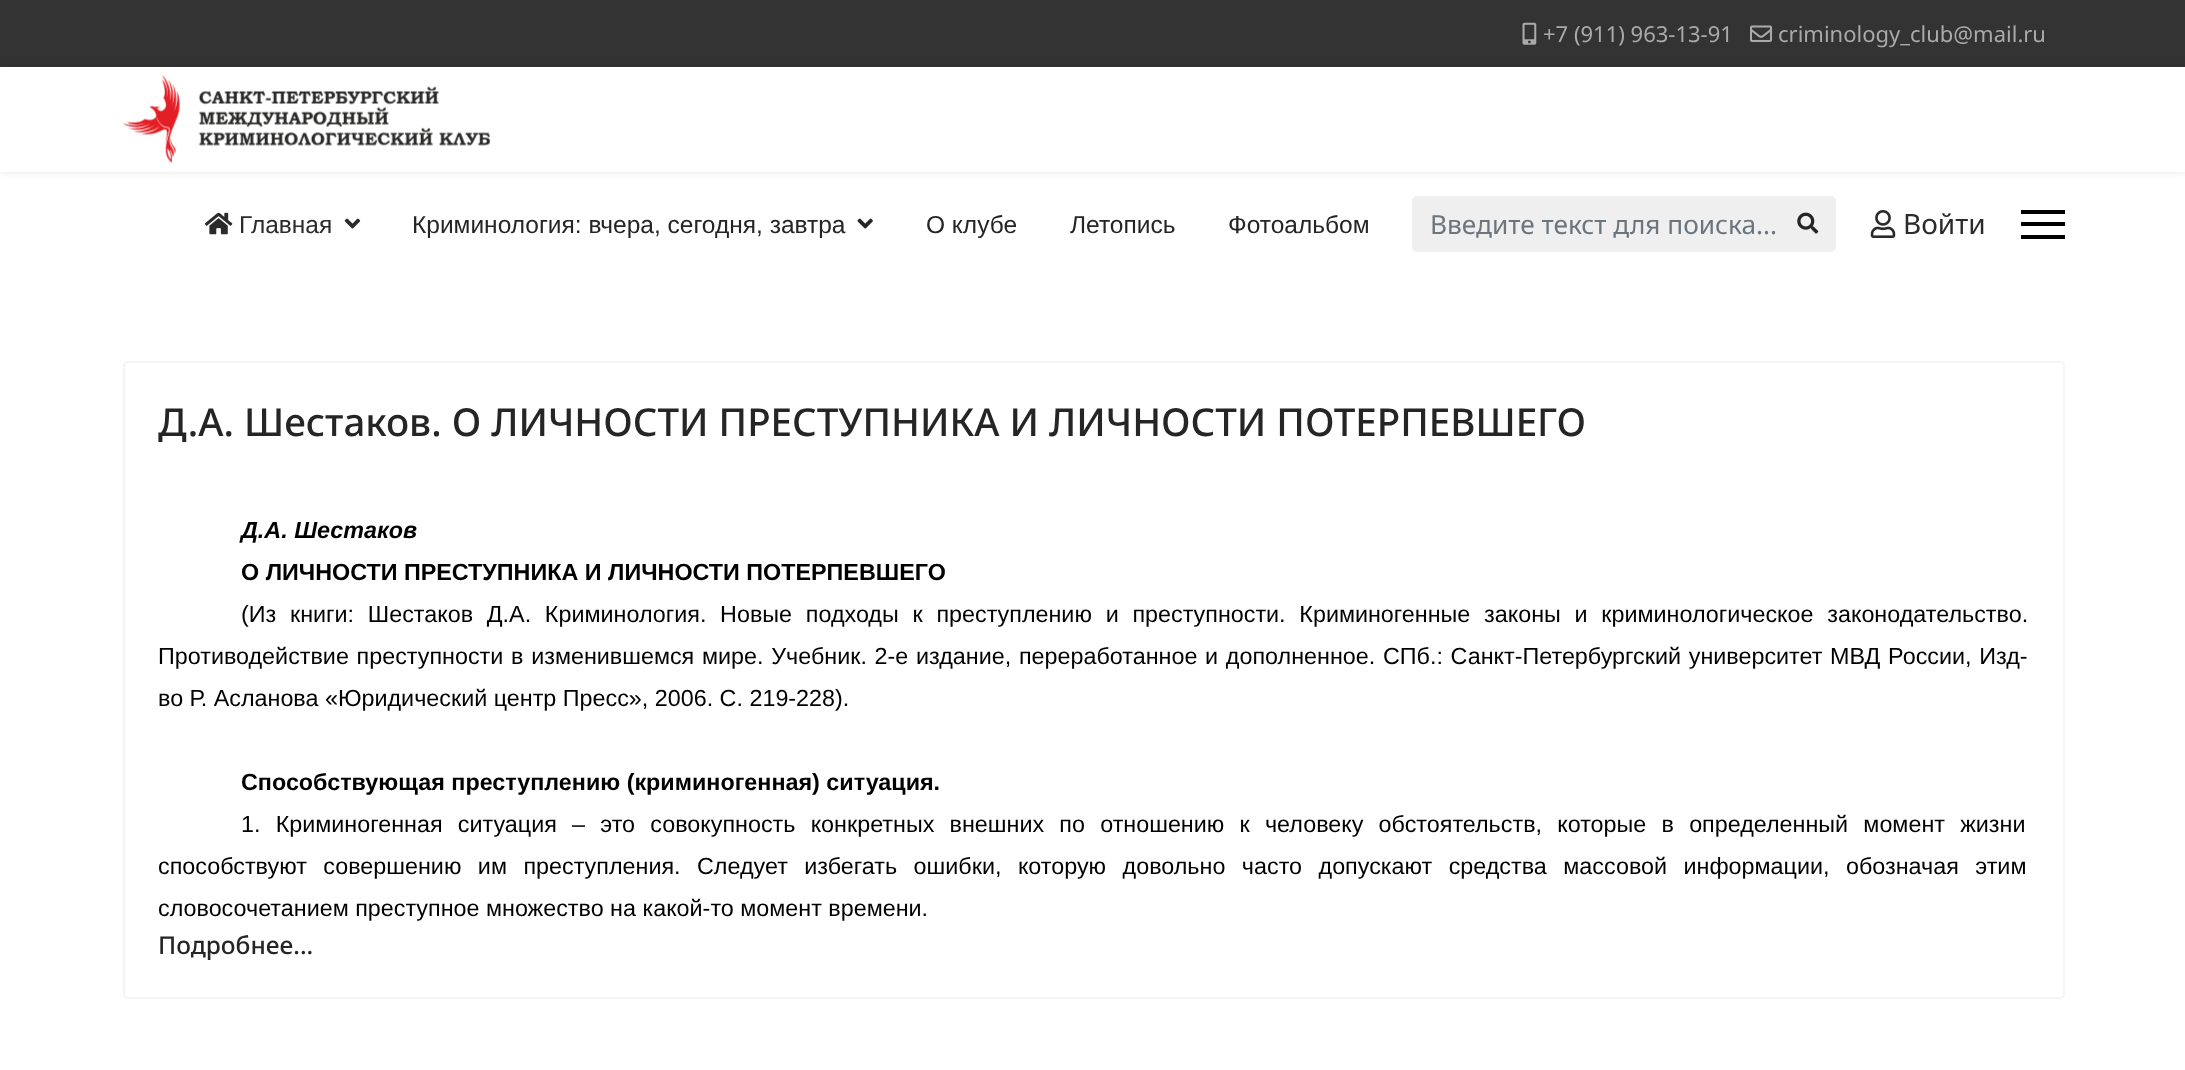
<!DOCTYPE html>
<meta charset="utf-8">
<style>body { margin: 0 } canvas { display: block }</style>
<canvas id="canvas" width="2185" height="1070"></canvas>
<script type="module">
  const canvas = document.getElementById("canvas");
  const ctx = canvas.getContext("2d");
  ctx.miterLimit = 4;
  ctx.fontKerning = "normal";
  async function loadImage(src) {
    const img = new Image();
    img.src = src;
    await img.decode();
    return img;
  }

  ctx.fillStyle = "#ffffff";
  ctx.fillRect(0, 0, 2185, 1070);
  ctx.fillStyle = "#333333";
  ctx.fillRect(0, 0, 2185, 67);
  ctx.drawImage(await loadImage("img1.png"), 1522, 22, 15, 23);
  ctx.font = "22px Noto Sans";
  ctx.fillStyle = "#aaaaaa";
  ctx.fillText("+7 (911) 963-13-91", 1543, 42);
  ctx.drawImage(await loadImage("img2.png"), 1750, 25, 23, 17);
  ctx.fillText("criminology_club@mail.ru", 1778, 42);
  ctx.fillStyle = "rgba(0, 0, 0, 0.1)";
  ctx.filter = "blur(3.5px)";
  ctx.beginPath();
  ctx.rect(0, 67, 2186, 105);
  ctx.fill();
  ctx.filter = "none";
  ctx.fillStyle = "#ffffff";
  ctx.fillRect(0, 67, 2185, 105);
  ctx.drawImage(await loadImage("img3.png"), 123, 75, 367, 88);
  ctx.drawImage(await loadImage("img4.png"), 204, 212, 29, 23);
  ctx.font = "24.5px Liberation Sans";
  ctx.fillStyle = "#2b2b2b";
  ctx.fillText("Главная", 239, 233);
  ctx.drawImage(await loadImage("img5.png"), 344, 218, 17, 11);
  ctx.fillStyle = "#252525";
  ctx.fillText("Криминология: вчера, сегодня, завтра", 412, 233);
  ctx.drawImage(await loadImage("img6.png"), 857, 218, 16, 11);
  ctx.fillText("О клубе", 926, 233);
  ctx.fillText("Летопись", 1070, 233);
  ctx.fillText("Фотоальбом", 1228, 233);
  ctx.fillStyle = "#efeff0";
  ctx.beginPath();
  ctx.roundRect(1412, 196, 424, 56, 5);
  ctx.fill();
  ctx.font = "26.25px Noto Sans";
  ctx.fillStyle = "#6c757d";
  ctx.fillText("Введите текст для поиска...", 1430, 234);
  ctx.drawImage(await loadImage("img7.png"), 1797, 212, 22, 22);
  ctx.drawImage(await loadImage("img8.png"), 1870, 210, 26, 28);
  ctx.font = "28px Noto Sans";
  ctx.fillStyle = "#2b2b2b";
  ctx.fillText("Войти", 1903, 234);
  ctx.fillStyle = "#000000";
  ctx.fillRect(2021, 210, 44, 4);
  ctx.fillRect(2021, 222, 44, 4);
  ctx.fillRect(2021, 235, 44, 4);
  ctx.beginPath();
  ctx.roundRect(124, 362, 1940, 636, 4);
  ctx.strokeStyle = "#f5f5f5";
  ctx.lineWidth = 2;
  ctx.stroke();
  ctx.font = "500 38.5px Noto Sans";
  ctx.fillStyle = "#252525";
  ctx.fillText("Д.А. Шестаков. О ЛИЧНОСТИ ПРЕСТУПНИКА И ЛИЧНОСТИ ПОТЕРПЕВШЕГО", 158, 436);
  ctx.font = "italic bold 23.33px Liberation Sans";
  ctx.fillStyle = "#000000";
  ctx.fillText("Д.А. Шестаков", 241, 538);
  ctx.font = "bold 23.33px Liberation Sans";
  ctx.fillText("О ЛИЧНОСТИ ПРЕСТУПНИКА И ЛИЧНОСТИ ПОТЕРПЕВШЕГО", 241, 580);
  ctx.wordSpacing = "7.25px";
  ctx.font = "23.33px Liberation Sans";
  ctx.fillText("(Из книги: Шестаков Д.А. Криминология. Новые подходы к преступлению и преступности. Криминогенные законы и криминологическое законодательство.", 241, 622);
  ctx.wordSpacing = "1.25px";
  ctx.fillText("Противодействие преступности в изменившемся мире. Учебник. 2-е издание, переработанное и дополненное. СПб.: Санкт-Петербургский университет МВД России, Изд-", 158, 664);
  ctx.wordSpacing = "0px";
  ctx.fillText("во Р. Асланова «Юридический центр Пресс», 2006. С. 219-228).", 158, 706);
  ctx.font = "bold 23.33px Liberation Sans";
  ctx.fillText("Способствующая преступлению (криминогенная) ситуация.", 241, 790);
  ctx.wordSpacing = "8.75px";
  ctx.font = "23.33px Liberation Sans";
  ctx.fillText("1. Криминогенная ситуация – это совокупность конкретных внешних по отношению к человеку обстоятельств, которые в определенный момент жизни", 241, 832);
  ctx.wordSpacing = "10px";
  ctx.fillText("способствуют совершению им преступления. Следует избегать ошибки, которую довольно часто допускают средства массовой информации, обозначая этим", 158, 874);
  ctx.wordSpacing = "0px";
  ctx.fillText("словосочетанием преступное множество на какой-то момент времени.", 158, 916);
  ctx.font = "500 24.5px Noto Sans";
  ctx.fillStyle = "#252525";
  ctx.fillText("Подробнее...", 158, 954);
</script>
